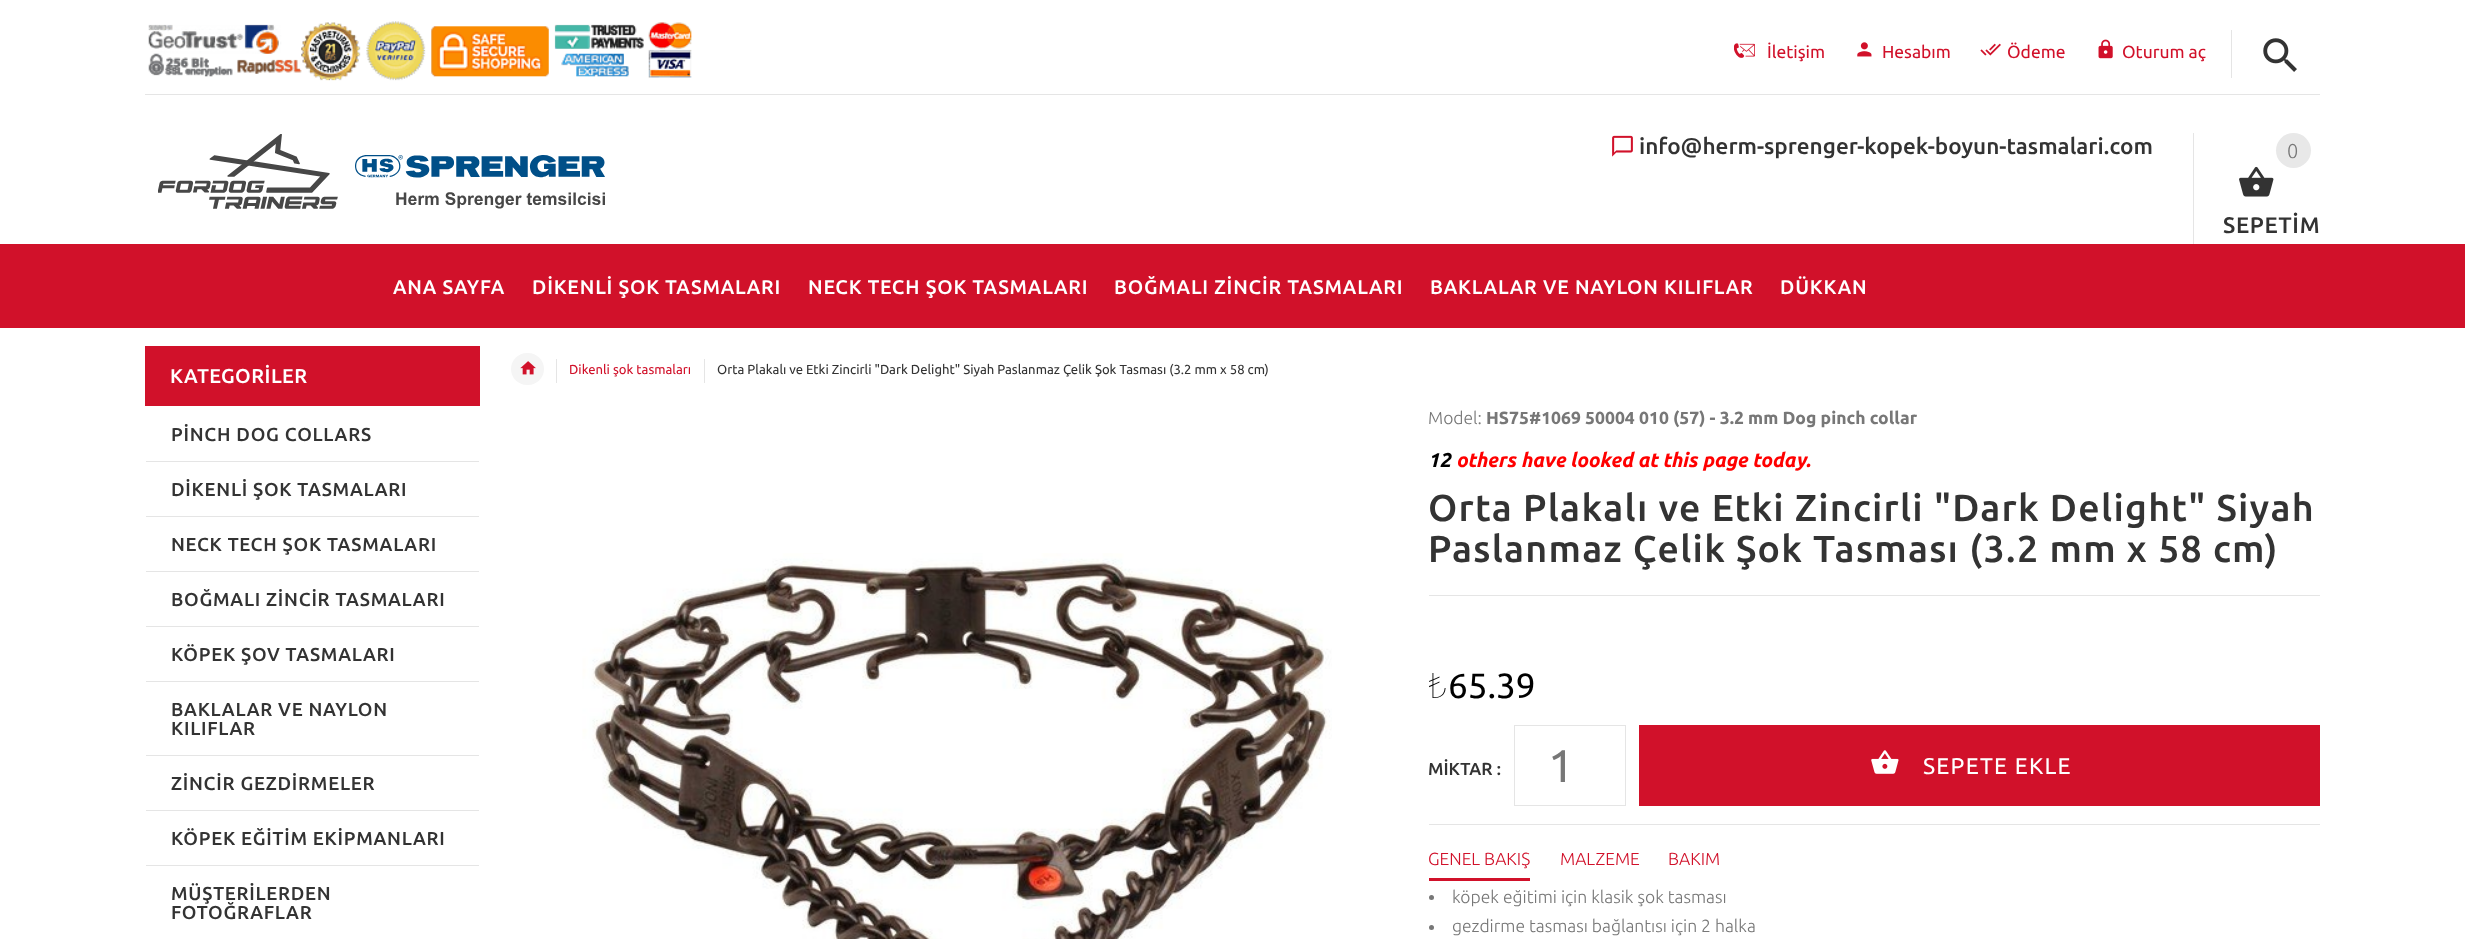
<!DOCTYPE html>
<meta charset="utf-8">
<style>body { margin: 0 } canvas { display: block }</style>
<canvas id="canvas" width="2465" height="939"></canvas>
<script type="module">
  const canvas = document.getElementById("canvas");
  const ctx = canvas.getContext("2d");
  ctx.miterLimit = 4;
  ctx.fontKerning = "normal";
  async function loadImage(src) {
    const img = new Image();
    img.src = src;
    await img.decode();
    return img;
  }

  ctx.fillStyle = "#ffffff";
  ctx.fillRect(0, 0, 2465, 939);
  ctx.drawImage(await loadImage("img1.png"), 148, 21, 544, 60);
  ctx.fillStyle = "#e5e5e5";
  ctx.fillRect(2231, 30, 1, 48);
  ctx.drawImage(await loadImage("img2.png"), 1734, 43, 21, 15);
  ctx.font = "17.5px Ubuntu";
  ctx.fillStyle = "#d1112a";
  ctx.fillText("İletişim", 1767, 58);
  ctx.drawImage(await loadImage("img3.png"), 1857, 42, 15, 15);
  ctx.fillText("Hesabım", 1882, 58);
  ctx.drawImage(await loadImage("img4.png"), 1980, 43, 21, 13);
  ctx.fillText("Ödeme", 2007, 58);
  ctx.drawImage(await loadImage("img5.png"), 2098, 39, 15, 20);
  ctx.fillText("Oturum aç", 2122, 58);
  ctx.drawImage(await loadImage("img6.png"), 2263, 38, 34, 34);
  ctx.fillStyle = "#e5e5e5";
  ctx.fillRect(145, 94, 2175, 1);
  ctx.drawImage(await loadImage("img7.png"), 158, 134, 447, 75);
  ctx.drawImage(await loadImage("img8.png"), 1612, 135, 21, 22);
  ctx.font = "500 22.5px Ubuntu";
  ctx.fillStyle = "#333333";
  ctx.fillText("info@herm-sprenger-kopek-boyun-tasmalari.com", 1639, 154);
  ctx.fillStyle = "#e5e5e5";
  ctx.fillRect(2193, 133, 1, 111);
  ctx.fillStyle = "#e8e8e8";
  ctx.beginPath();
  ctx.arc(2293.5, 150.5, 17.5, 0, Math.PI * 2);
  ctx.fill();
  ctx.font = "300 20px Ubuntu";
  ctx.fillStyle = "#777777";
  ctx.fillText("0", 2287, 158);
  ctx.drawImage(await loadImage("img9.png"), 2239, 166, 35, 31);
  ctx.letterSpacing = "0.75px";
  ctx.font = "500 22.5px Ubuntu";
  ctx.fillStyle = "#333333";
  ctx.fillText("SEPETİM", 2223, 233);
  ctx.fillStyle = "#d1112a";
  ctx.fillRect(0, 244, 2465, 84);
  ctx.letterSpacing = "0.8px";
  ctx.font = "500 19.75px Ubuntu";
  ctx.fillStyle = "#ffffff";
  ctx.fillText("ANA SAYFA", 393, 294);
  ctx.fillText("DİKENLİ ŞOK TASMALARI", 532, 294);
  ctx.fillText("NECK TECH ŞOK TASMALARI", 808, 294);
  ctx.fillText("BOĞMALI ZİNCİR TASMALARI", 1114, 294);
  ctx.fillText("BAKLALAR VE NAYLON KILIFLAR", 1430, 294);
  ctx.fillText("DÜKKAN", 1780, 294);
  ctx.fillStyle = "#d1112a";
  ctx.fillRect(145, 346, 335, 60);
  ctx.letterSpacing = "0.5px";
  ctx.font = "500 20px Ubuntu";
  ctx.fillStyle = "#ffffff";
  ctx.fillText("KATEGORİLER", 170, 383);
  ctx.fillStyle = "#e5e5e5";
  ctx.fillRect(146, 461, 333, 1);
  ctx.letterSpacing = "0.75px";
  ctx.font = "500 18.75px Ubuntu";
  ctx.fillStyle = "#333333";
  ctx.fillText("PİNCH DOG COLLARS", 171, 441);
  ctx.fillStyle = "#e5e5e5";
  ctx.fillRect(146, 516, 333, 1);
  ctx.fillStyle = "#333333";
  ctx.fillText("DİKENLİ ŞOK TASMALARI", 171, 496);
  ctx.fillStyle = "#e5e5e5";
  ctx.fillRect(146, 571, 333, 1);
  ctx.fillStyle = "#333333";
  ctx.fillText("NECK TECH ŞOK TASMALARI", 171, 551);
  ctx.fillStyle = "#e5e5e5";
  ctx.fillRect(146, 626, 333, 1);
  ctx.fillStyle = "#333333";
  ctx.fillText("BOĞMALI ZİNCİR TASMALARI", 171, 606);
  ctx.fillStyle = "#e5e5e5";
  ctx.fillRect(146, 681, 333, 1);
  ctx.fillStyle = "#333333";
  ctx.fillText("KÖPEK ŞOV TASMALARI", 171, 661);
  ctx.fillStyle = "#e5e5e5";
  ctx.fillRect(146, 755, 333, 1);
  ctx.fillStyle = "#333333";
  ctx.fillText("BAKLALAR VE NAYLON", 171, 716);
  ctx.fillText("KILIFLAR", 171, 735);
  ctx.fillStyle = "#e5e5e5";
  ctx.fillRect(146, 810, 333, 1);
  ctx.fillStyle = "#333333";
  ctx.fillText("ZİNCİR GEZDİRMELER", 171, 790);
  ctx.fillStyle = "#e5e5e5";
  ctx.fillRect(146, 865, 333, 1);
  ctx.fillStyle = "#333333";
  ctx.fillText("KÖPEK EĞİTİM EKİPMANLARI", 171, 845);
  ctx.fillText("MÜŞTERİLERDEN", 171, 900);
  ctx.fillText("FOTOĞRAFLAR", 171, 919);
  ctx.fillStyle = "#f5f5f5";
  ctx.beginPath();
  ctx.roundRect(511, 353, 33, 32, 16);
  ctx.fill();
  ctx.drawImage(await loadImage("img10.png"), 520, 361, 16, 14);
  ctx.fillStyle = "#e5e5e5";
  ctx.fillRect(556, 359, 1, 24);
  ctx.letterSpacing = "0px";
  ctx.font = "13.1px Ubuntu";
  ctx.fillStyle = "#d1112a";
  ctx.fillText("Dikenli şok tasmaları", 569, 374);
  ctx.fillStyle = "#e5e5e5";
  ctx.fillRect(704, 359, 1, 24);
  ctx.fillStyle = "#333333";
  ctx.fillText("Orta Plakalı ve Etki Zincirli \"Dark Delight\" Siyah Paslanmaz Çelik Şok Tasması (3.2 mm x 58 cm)", 717, 374);
  ctx.drawImage(await loadImage("img11.png"), 582, 553, 750, 386);
  ctx.font = "300 17.5px Ubuntu";
  ctx.fillStyle = "#777777";
  ctx.fillText("Model:", 1428, 424);
  ctx.font = "bold 17.5px Ubuntu";
  ctx.fillText("HS75#1069 50004 010 (57) - 3.2 mm Dog pinch collar", 1486, 424);
  ctx.font = "italic bold 20px Ubuntu";
  ctx.fillStyle = "#000000";
  ctx.fillText("12", 1428, 467);
  ctx.fillStyle = "#ff0000";
  ctx.fillText("others have looked at this page today.", 1456, 467);
  ctx.letterSpacing = "1.25px";
  ctx.font = "500 37.5px Ubuntu";
  ctx.fillStyle = "#333333";
  ctx.fillText("Orta Plakalı ve Etki Zincirli \"Dark Delight\" Siyah", 1428, 521);
  ctx.fillText("Paslanmaz Çelik Şok Tasması (3.2 mm x 58 cm)", 1428, 562);
  ctx.fillStyle = "#e5e5e5";
  ctx.fillRect(1429, 595, 891, 1);
  ctx.letterSpacing = "0px";
  ctx.font = "100 35px Noto Sans";
  ctx.fillStyle = "#000000";
  ctx.fillText("₺", 1428, 698);
  ctx.font = "35px Ubuntu";
  ctx.fillText("65.39", 1448, 698);
  ctx.font = "500 17.5px Ubuntu";
  ctx.fillStyle = "#333333";
  ctx.fillText("MİKTAR :", 1428, 775);
  ctx.strokeStyle = "#e5e5e5";
  ctx.strokeRect(1514.5, 725.5, 111, 80);
  ctx.font = "46px Ubuntu";
  ctx.fillStyle = "#777777";
  ctx.fillText("1", 1548, 782);
  ctx.fillStyle = "#d1112a";
  ctx.fillRect(1639, 725, 681, 81);
  ctx.drawImage(await loadImage("img12.png"), 1871, 750, 28, 24);
  ctx.letterSpacing = "1.25px";
  ctx.font = "22.75px Ubuntu";
  ctx.fillStyle = "#ffffff";
  ctx.fillText("SEPETE EKLE", 1923, 774);
  ctx.fillStyle = "#e5e5e5";
  ctx.fillRect(1429, 824, 891, 1);
  ctx.fillStyle = "#d1112a";
  ctx.fillRect(1429, 878, 101, 3);
  ctx.letterSpacing = "0px";
  ctx.font = "300 17.5px Ubuntu";
  ctx.fillText("GENEL BAKIŞ", 1428, 865);
  ctx.fillText("MALZEME", 1560, 865);
  ctx.fillText("BAKIM", 1668, 865);
  ctx.fillStyle = "#777777";
  ctx.beginPath();
  ctx.arc(1431.5, 897.5, 2.5, 0, Math.PI * 2);
  ctx.fill();
  ctx.fillText("köpek eğitimi için klasik şok tasması", 1452, 903);
  ctx.beginPath();
  ctx.arc(1431.5, 927.5, 2.5, 0, Math.PI * 2);
  ctx.fill();
  ctx.fillText("gezdirme tasması bağlantısı için 2 halka", 1452, 932);
</script>
